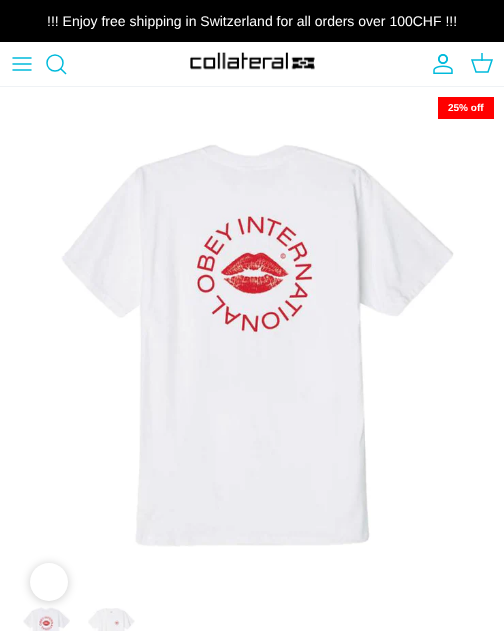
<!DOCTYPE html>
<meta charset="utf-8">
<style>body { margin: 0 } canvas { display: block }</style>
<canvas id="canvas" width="504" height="631"></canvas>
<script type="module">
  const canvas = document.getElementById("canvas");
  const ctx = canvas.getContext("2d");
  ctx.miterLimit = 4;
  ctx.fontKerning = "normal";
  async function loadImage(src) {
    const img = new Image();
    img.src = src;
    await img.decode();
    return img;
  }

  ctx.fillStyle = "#ffffff";
  ctx.fillRect(0, 0, 504, 631);
  ctx.fillStyle = "#000000";
  ctx.fillRect(0, 0, 504, 42);
  ctx.font = "14px Liberation Sans";
  ctx.fillStyle = "#ffffff";
  ctx.fillText("!!! Enjoy free shipping in Switzerland for all orders over 100CHF !!!", 47, 26);
  ctx.fillStyle = "#eff2f5";
  ctx.fillRect(0, 86, 504, 1);
  ctx.beginPath();
  ctx.moveTo(13, 64);
  ctx.lineTo(31, 64);
  ctx.moveTo(13, 58);
  ctx.lineTo(31, 58);
  ctx.moveTo(13, 70);
  ctx.lineTo(31, 70);
  ctx.strokeStyle = "#00badb";
  ctx.lineWidth = 1.5;
  ctx.lineCap = "round";
  ctx.lineJoin = "round";
  ctx.stroke();
  ctx.beginPath();
  ctx.arc(55, 63, 8, 0, Math.PI * 2);
  ctx.stroke();
  ctx.beginPath();
  ctx.moveTo(61, 69);
  ctx.lineTo(65.5, 73.5);
  ctx.lineCap = "square";
  ctx.lineJoin = "miter";
  ctx.stroke();
  ctx.drawImage(await loadImage("img1.png"), 190, 52, 125, 18);
  ctx.drawImage(await loadImage("img2.png"), 433, 54, 20, 20);
  ctx.beginPath();
  ctx.moveTo(472, 60);
  ctx.lineTo(492, 60);
  ctx.lineTo(488, 72);
  ctx.lineTo(476, 72);
  ctx.closePath();
  ctx.lineCap = "butt";
  ctx.stroke();
  ctx.fillStyle = "rgba(0, 186, 219, 0.75)";
  ctx.fillRect(481, 53, 2, 8);
  ctx.fillStyle = "#ff0000";
  ctx.fillRect(438, 97, 56, 22);
  ctx.font = "bold 10px Liberation Sans";
  ctx.fillStyle = "#ffffff";
  ctx.fillText("25% off", 448, 111);
  ctx.drawImage(await loadImage("img3.png"), 61, 144, 393, 403);
  ctx.drawImage(await loadImage("img4.png"), 23, 607, 47, 24);
  ctx.drawImage(await loadImage("img5.png"), 88, 608, 47, 23);
  ctx.fillStyle = "rgba(0, 0, 0, 0.2)";
  ctx.filter = "blur(5px)";
  ctx.beginPath();
  ctx.roundRect(30, 564, 38, 38, 19);
  ctx.fill();
  ctx.filter = "none";
  ctx.fillStyle = "#ffffff";
  ctx.beginPath();
  ctx.arc(49, 582, 19, 0, Math.PI * 2);
  ctx.fill();
</script>
